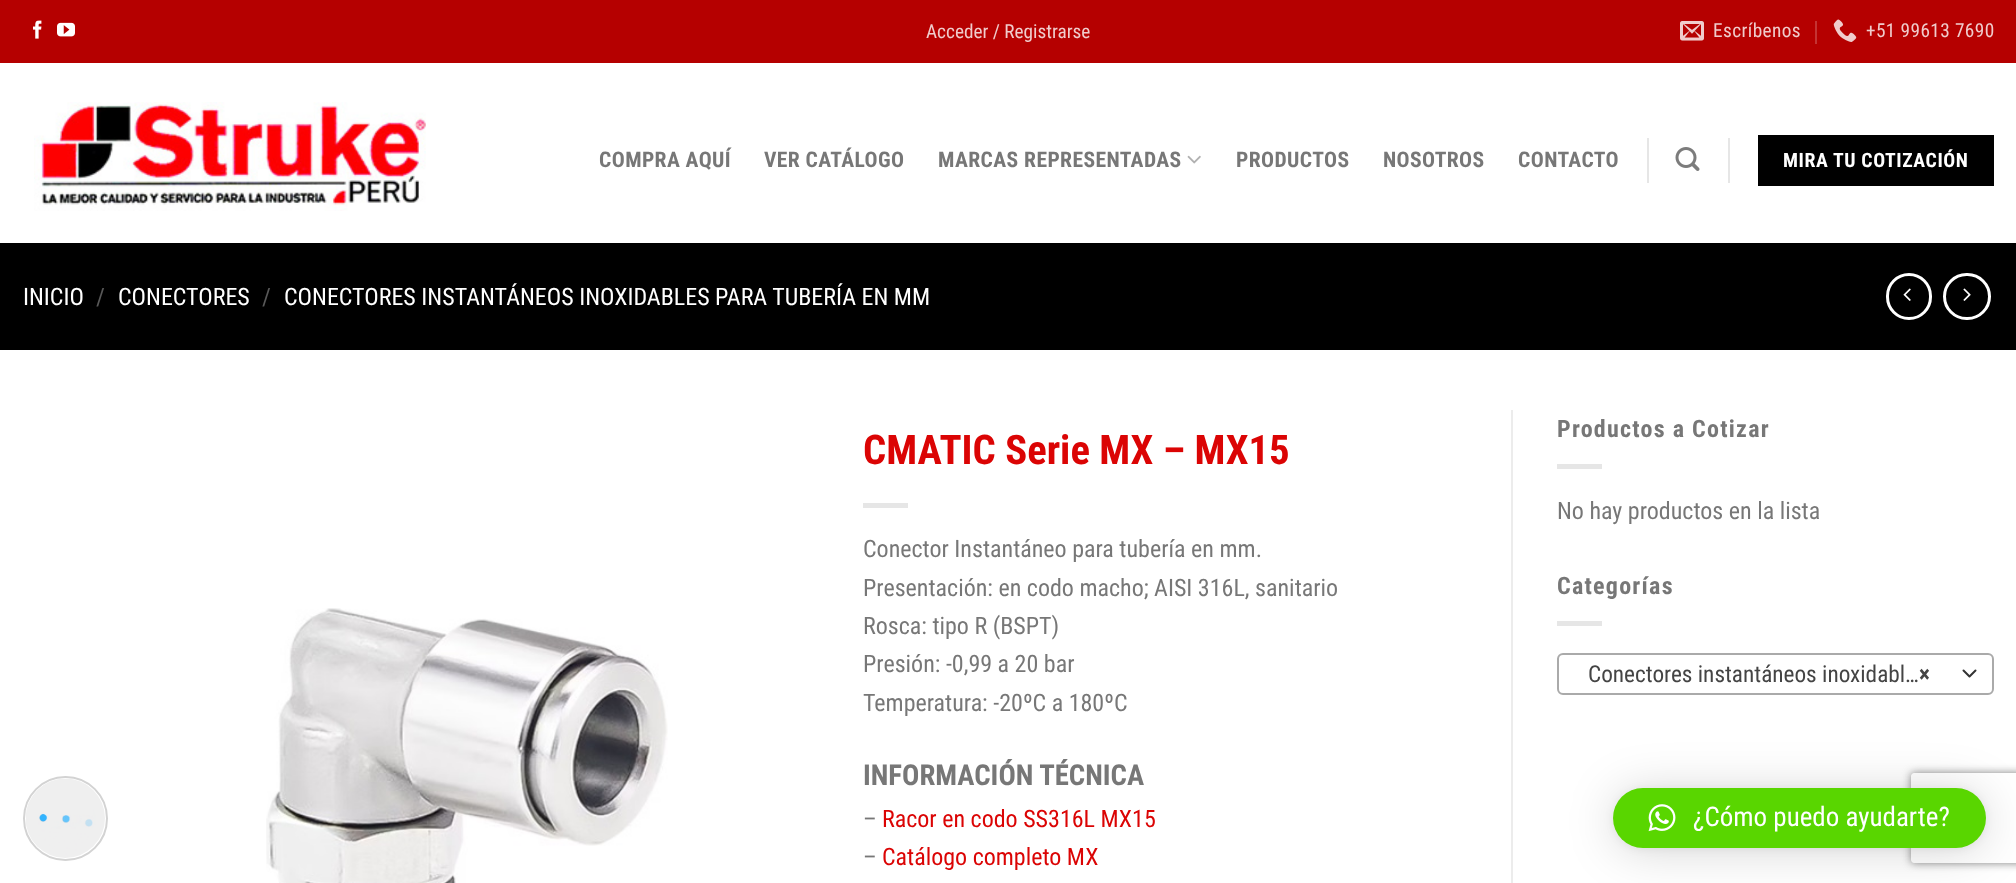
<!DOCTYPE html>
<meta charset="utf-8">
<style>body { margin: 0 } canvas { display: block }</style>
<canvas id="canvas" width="2016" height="883"></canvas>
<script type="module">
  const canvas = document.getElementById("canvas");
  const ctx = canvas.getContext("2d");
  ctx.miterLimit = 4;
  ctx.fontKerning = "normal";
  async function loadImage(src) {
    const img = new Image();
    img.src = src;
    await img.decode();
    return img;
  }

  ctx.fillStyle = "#ffffff";
  ctx.fillRect(0, 0, 2016, 883);
  ctx.fillStyle = "#b50000";
  ctx.fillRect(0, 0, 2016, 63);
  ctx.drawImage(await loadImage("img1.png"), 33, 20, 9, 19);
  ctx.drawImage(await loadImage("img2.png"), 57, 22, 18, 15);
  ctx.font = "19.25px Roboto Condensed";
  ctx.fillStyle = "#f0cccc";
  ctx.fillText("Acceder / Registrarse", 926, 38);
  ctx.drawImage(await loadImage("img3.png"), 1680, 21, 24, 20);
  ctx.letterSpacing = "0.4px";
  ctx.fillText("Escríbenos", 1713, 37);
  ctx.fillStyle = "#c43333";
  ctx.fillRect(1815, 21, 2, 23);
  ctx.drawImage(await loadImage("img4.png"), 1833, 19, 24, 23);
  ctx.fillStyle = "#f0cccc";
  ctx.fillText("+51 99613 7690", 1866, 37);
  ctx.drawImage(await loadImage("img5.png"), 34, 102, 392, 109);
  ctx.font = "bold 21.6px Roboto Condensed";
  ctx.fillStyle = "#777777";
  ctx.fillText("COMPRA AQUÍ", 599, 167);
  ctx.fillText("VER CATÁLOGO", 764, 167);
  ctx.fillText("MARCAS REPRESENTADAS", 938, 167);
  ctx.drawImage(await loadImage("img6.png"), 1187, 155, 14, 9);
  ctx.fillText("PRODUCTOS", 1236, 167);
  ctx.fillText("NOSOTROS", 1383, 167);
  ctx.fillText("CONTACTO", 1518, 167);
  ctx.fillStyle = "#e6e6e6";
  ctx.fillRect(1647, 138, 2, 45);
  ctx.drawImage(await loadImage("img7.png"), 1675, 147, 25, 24);
  ctx.fillRect(1728, 138, 2, 45);
  ctx.fillStyle = "#000000";
  ctx.fillRect(1758, 135, 236, 51);
  ctx.letterSpacing = "0.6px";
  ctx.font = "bold 19.75px Roboto Condensed";
  ctx.fillStyle = "#ffffff";
  ctx.fillText("MIRA TU COTIZACIÓN", 1783, 167);
  ctx.fillStyle = "#000000";
  ctx.fillRect(0, 243, 2016, 107);
  ctx.letterSpacing = "0px";
  ctx.font = "24px Roboto Condensed";
  ctx.fillStyle = "#ffffff";
  ctx.fillText("INICIO", 23, 305);
  ctx.fillStyle = "#595959";
  ctx.fillText("/", 96, 305);
  ctx.fillStyle = "#ffffff";
  ctx.fillText("CONECTORES", 118, 305);
  ctx.fillStyle = "#595959";
  ctx.fillText("/", 262, 305);
  ctx.fillStyle = "#ffffff";
  ctx.fillText("CONECTORES INSTANTÁNEOS INOXIDABLES PARA TUBERÍA EN MM", 284, 305);
  ctx.beginPath();
  ctx.roundRect(1887.5, 274.5, 43, 44, 21.5);
  ctx.strokeStyle = "#ffffff";
  ctx.lineWidth = 3;
  ctx.stroke();
  ctx.drawImage(await loadImage("img8.png"), 1903, 288, 8, 13);
  ctx.beginPath();
  ctx.roundRect(1944.5, 274.5, 45, 44, 22);
  ctx.stroke();
  ctx.drawImage(await loadImage("img9.png"), 1963, 288, 8, 13);
  ctx.drawImage(await loadImage("img10.png"), 266, 608, 402, 275);
  ctx.fillStyle = "#ececec";
  ctx.fillRect(1511, 410, 2, 473);
  ctx.font = "bold 40.75px Roboto Condensed";
  ctx.fillStyle = "#db0404";
  ctx.fillText("CMATIC Serie MX – MX15", 863, 464);
  ctx.fillStyle = "#e6e6e6";
  ctx.fillRect(863, 503, 45, 5);
  ctx.font = "24px Roboto Condensed";
  ctx.fillStyle = "#777777";
  ctx.fillText("Conector Instantáneo para tubería en mm.", 863, 557);
  ctx.fillText("Presentación: en codo macho; AISI 316L, sanitario", 863, 596);
  ctx.fillText("Rosca: tipo R (BSPT)", 863, 634);
  ctx.fillText("Presión: -0,99 a 20 bar", 863, 672);
  ctx.fillText("Temperatura: -20ºC a 180ºC", 863, 711);
  ctx.font = "bold 28.75px Roboto Condensed";
  ctx.fillText("INFORMACIÓN TÉCNICA", 863, 785);
  ctx.font = "24px Roboto Condensed";
  ctx.fillText("–", 863, 827);
  ctx.fillStyle = "#db0404";
  ctx.fillText("Racor en codo SS316L MX15", 882, 827);
  ctx.fillStyle = "#777777";
  ctx.fillText("–", 863, 865);
  ctx.fillStyle = "#db0404";
  ctx.fillText("Catálogo completo MX", 882, 865);
  ctx.letterSpacing = "1.25px";
  ctx.font = "bold 24px Roboto Condensed";
  ctx.fillStyle = "#777777";
  ctx.fillText("Productos a Cotizar", 1557, 437);
  ctx.fillStyle = "#e6e6e6";
  ctx.fillRect(1557, 464, 45, 5);
  ctx.letterSpacing = "0px";
  ctx.font = "24px Roboto Condensed";
  ctx.fillStyle = "#777777";
  ctx.fillText("No hay productos en la lista", 1557, 519);
  ctx.letterSpacing = "1.25px";
  ctx.font = "bold 24px Roboto Condensed";
  ctx.fillText("Categorías", 1557, 594);
  ctx.fillStyle = "#e6e6e6";
  ctx.fillRect(1557, 621, 45, 5);
  ctx.beginPath();
  ctx.moveTo(1963.5, 670.5);
  ctx.lineTo(1969.5, 676.5);
  ctx.lineTo(1975.5, 670.5);
  ctx.strokeStyle = "#333333";
  ctx.lineWidth = 2;
  ctx.lineCap = "round";
  ctx.lineJoin = "round";
  ctx.stroke();
  ctx.beginPath();
  ctx.roundRect(1558, 654, 435, 40, 5);
  ctx.strokeStyle = "#aaaaaa";
  ctx.lineJoin = "miter";
  ctx.stroke();
  ctx.letterSpacing = "0px";
  ctx.font = "23.25px Roboto Condensed";
  ctx.fillStyle = "#444444";
  ctx.fillText("Conectores instantáneos inoxidabl…", 1588, 682);
  ctx.font = "bold 23.25px Roboto Condensed";
  ctx.fillText("×", 1919, 682);
  ctx.beginPath();
  ctx.arc(65.5, 818.5, 41.5, 0, Math.PI * 2);
  ctx.strokeStyle = "#d3d3d3";
  ctx.stroke();
  ctx.drawImage(await loadImage("img11.png"), 26, 778, 79, 80);
  ctx.fillStyle = "rgba(0, 0, 0, 0.16)";
  ctx.filter = "blur(24px)";
  ctx.beginPath();
  ctx.roundRect(1613, 791, 373, 60, 30);
  ctx.fill();
  ctx.filter = "none";
  ctx.fillStyle = "rgba(0, 0, 0, 0.06)";
  ctx.filter = "blur(4.5px)";
  ctx.beginPath();
  ctx.roundRect(1613, 789, 373, 60, 30);
  ctx.fill();
  ctx.filter = "none";
  ctx.save();
  ctx.beginPath();
  ctx.moveTo(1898, 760);
  ctx.lineTo(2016, 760);
  ctx.lineTo(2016, 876);
  ctx.lineTo(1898, 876);
  ctx.closePath();
  ctx.moveTo(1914, 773);
  ctx.lineTo(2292, 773);
  ctx.bezierCurveTo(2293.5, 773, 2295, 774.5, 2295, 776);
  ctx.lineTo(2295, 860);
  ctx.bezierCurveTo(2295, 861.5, 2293.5, 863, 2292, 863);
  ctx.lineTo(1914, 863);
  ctx.bezierCurveTo(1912.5, 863, 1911, 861.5, 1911, 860);
  ctx.lineTo(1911, 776);
  ctx.bezierCurveTo(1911, 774.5, 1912.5, 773, 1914, 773);
  ctx.closePath();
  ctx.clip("evenodd");
  ctx.fillStyle = "#808080";
  ctx.filter = "blur(4px)";
  ctx.beginPath();
  ctx.roundRect(1911, 773, 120, 90, 3);
  ctx.fill();
  ctx.filter = "none";
  ctx.restore();
  ctx.fillStyle = "#59d600";
  ctx.beginPath();
  ctx.roundRect(1613, 788, 373, 60, 30);
  ctx.fill();
  ctx.drawImage(await loadImage("img12.png"), 1648, 804, 28, 28);
  ctx.font = "27px Roboto Condensed";
  ctx.fillStyle = "#ffffff";
  ctx.fillText("¿Cómo puedo ayudarte?", 1693, 826);
</script>
